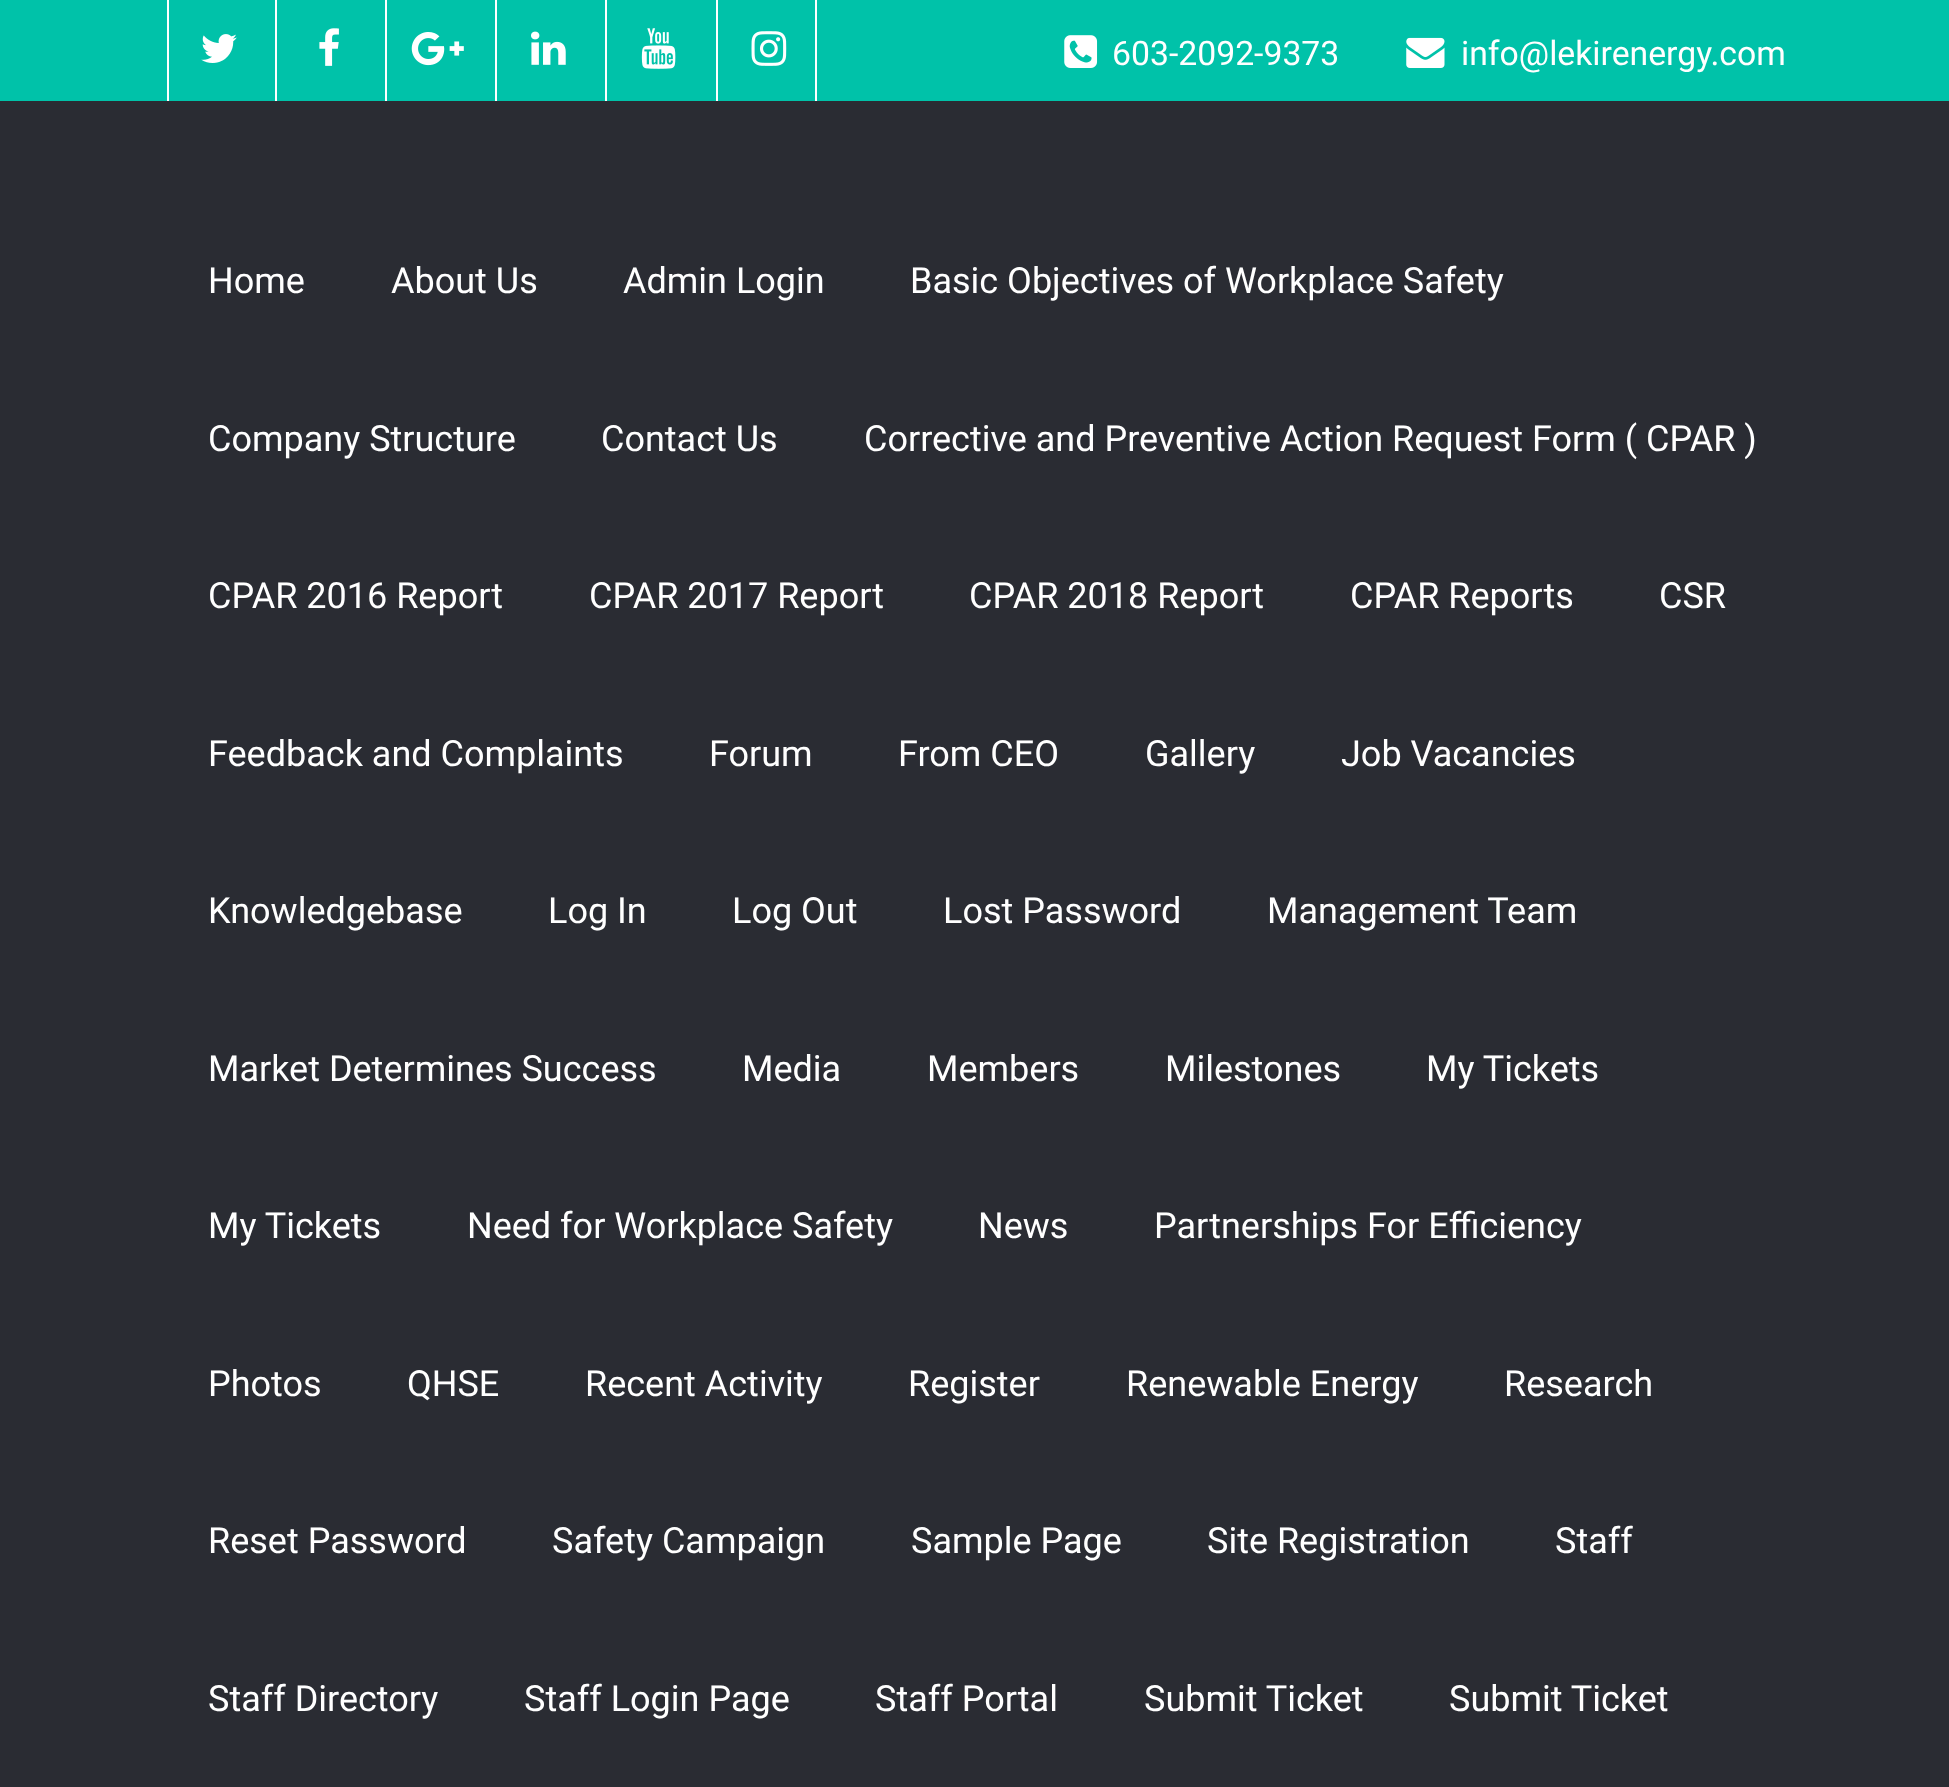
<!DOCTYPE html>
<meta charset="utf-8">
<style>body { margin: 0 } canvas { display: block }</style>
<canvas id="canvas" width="1949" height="1787"></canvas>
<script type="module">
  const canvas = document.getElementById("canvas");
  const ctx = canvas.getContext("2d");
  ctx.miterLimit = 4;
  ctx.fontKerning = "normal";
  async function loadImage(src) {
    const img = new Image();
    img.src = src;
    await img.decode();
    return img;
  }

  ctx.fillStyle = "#2a2c33";
  ctx.fillRect(0, 0, 1949, 1787);
  ctx.fillStyle = "#00c2a9";
  ctx.fillRect(0, 0, 1949, 101);
  ctx.fillStyle = "#ffffff";
  ctx.fillRect(167, 0, 2, 101);
  ctx.drawImage(await loadImage("img1.png"), 201, 34, 36, 29);
  ctx.fillRect(275, 0, 2, 101);
  ctx.drawImage(await loadImage("img2.png"), 319, 28, 20, 38);
  ctx.fillRect(385, 0, 2, 101);
  ctx.drawImage(await loadImage("img3.png"), 411, 32, 53, 34);
  ctx.fillRect(495, 0, 2, 101);
  ctx.drawImage(await loadImage("img4.png"), 531, 31, 35, 34);
  ctx.fillRect(605, 0, 2, 101);
  ctx.drawImage(await loadImage("img5.png"), 641, 28, 35, 41);
  ctx.fillRect(815, 0, 2, 101);
  ctx.fillRect(716, 0, 2, 101);
  ctx.drawImage(await loadImage("img6.png"), 751, 31, 36, 35);
  ctx.drawImage(await loadImage("img7.png"), 1064, 35, 34, 33);
  ctx.font = "33.75px Roboto";
  ctx.fillText("603-2092-9373", 1112, 65);
  ctx.drawImage(await loadImage("img8.png"), 1406, 37, 39, 31);
  ctx.fillText("info@lekirenergy.com", 1461, 65);
  ctx.font = "36px Roboto";
  ctx.fillText("Home", 208, 293);
  ctx.fillText("About Us", 391, 293);
  ctx.fillText("Admin Login", 623, 293);
  ctx.fillText("Basic Objectives of Workplace Safety", 910, 293);
  ctx.fillText("Company Structure", 208, 451);
  ctx.fillText("Contact Us", 601, 451);
  ctx.fillText("Corrective and Preventive Action Request Form ( CPAR )", 864, 451);
  ctx.fillText("CPAR 2016 Report", 208, 608);
  ctx.fillText("CPAR 2017 Report", 589, 608);
  ctx.fillText("CPAR 2018 Report", 969, 608);
  ctx.fillText("CPAR Reports", 1350, 608);
  ctx.fillText("CSR", 1659, 608);
  ctx.fillText("Feedback and Complaints", 208, 766);
  ctx.fillText("Forum", 709, 766);
  ctx.fillText("From CEO", 898, 766);
  ctx.fillText("Gallery", 1145, 766);
  ctx.fillText("Job Vacancies", 1341, 766);
  ctx.fillText("Knowledgebase", 208, 923);
  ctx.fillText("Log In", 548, 923);
  ctx.fillText("Log Out", 732, 923);
  ctx.fillText("Lost Password", 943, 923);
  ctx.fillText("Management Team", 1267, 923);
  ctx.fillText("Market Determines Success", 208, 1081);
  ctx.fillText("Media", 742, 1081);
  ctx.fillText("Members", 927, 1081);
  ctx.fillText("Milestones", 1165, 1081);
  ctx.fillText("My Tickets", 1426, 1081);
  ctx.fillText("My Tickets", 208, 1238);
  ctx.fillText("Need for Workplace Safety", 467, 1238);
  ctx.fillText("News", 978, 1238);
  ctx.fillText("Partnerships For Efficiency", 1154, 1238);
  ctx.fillText("Photos", 208, 1396);
  ctx.fillText("QHSE", 407, 1396);
  ctx.fillText("Recent Activity", 585, 1396);
  ctx.fillText("Register", 908, 1396);
  ctx.fillText("Renewable Energy", 1126, 1396);
  ctx.fillText("Research", 1504, 1396);
  ctx.fillText("Reset Password", 208, 1553);
  ctx.fillText("Safety Campaign", 552, 1553);
  ctx.fillText("Sample Page", 911, 1553);
  ctx.fillText("Site Registration", 1207, 1553);
  ctx.fillText("Staff", 1555, 1553);
  ctx.fillText("Staff Directory", 208, 1711);
  ctx.fillText("Staff Login Page", 524, 1711);
  ctx.fillText("Staff Portal", 875, 1711);
  ctx.fillText("Submit Ticket", 1144, 1711);
  ctx.fillText("Submit Ticket", 1449, 1711);
</script>
